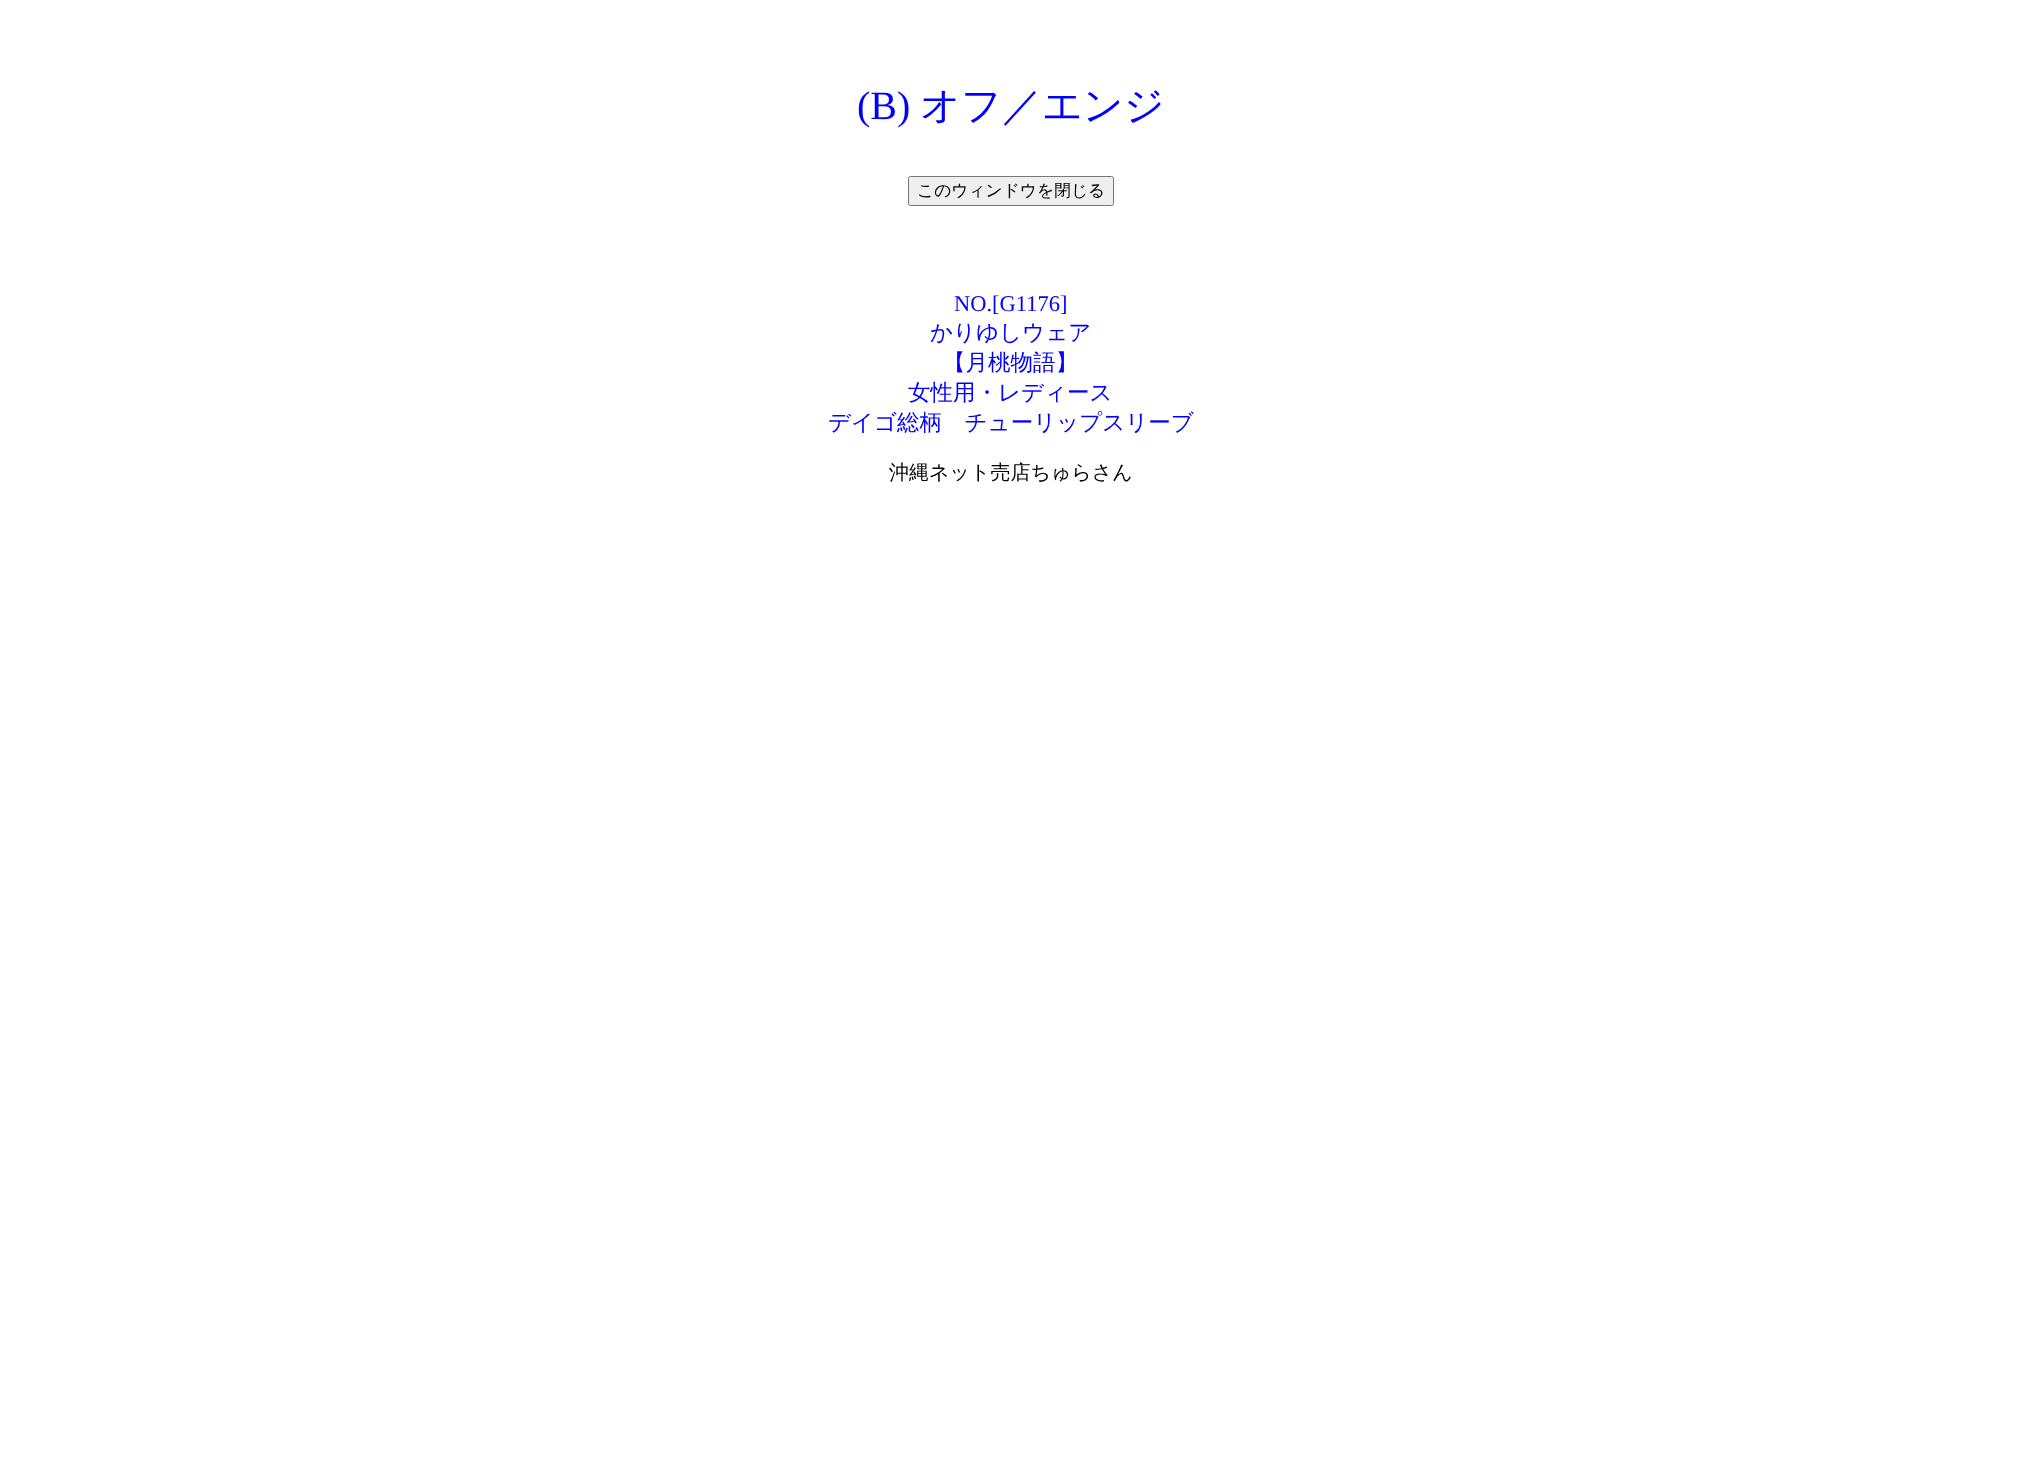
<!DOCTYPE html>
<meta charset="utf-8">
<style>body { margin: 0 } canvas { display: block }</style>
<canvas id="canvas" width="2021" height="1463"></canvas>
<script type="module">
  const canvas = document.getElementById("canvas");
  const ctx = canvas.getContext("2d");
  ctx.miterLimit = 4;
  ctx.fontKerning = "normal";

  ctx.fillStyle = "#ffffff";
  ctx.fillRect(0, 0, 2021, 1463);
  ctx.font = "40px Liberation Serif";
  ctx.fillStyle = "#0000ff";
  ctx.fillText("(B)", 857, 119);
  ctx.font = "500 40px WenQuanYi Zen Hei";
  ctx.fillText("オフ／エンジ", 920, 119);
  ctx.fillStyle = "#efefef";
  ctx.beginPath();
  ctx.roundRect(908.5, 176.5, 205, 29, 2);
  ctx.fill();
  ctx.strokeStyle = "#767676";
  ctx.stroke();
  ctx.font = "500 16.75px WenQuanYi Zen Hei";
  ctx.fillStyle = "#000000";
  ctx.fillText("このウィンドウを閉じる", 917, 196);
  ctx.font = "22.5px Liberation Serif";
  ctx.fillStyle = "#0000ff";
  ctx.fillText("NO.[G1176]", 954, 311);
  ctx.font = "500 22.5px WenQuanYi Zen Hei";
  ctx.fillText("かりゆしウェア", 930, 340);
  ctx.fillText("【月桃物語】", 943, 370);
  ctx.fillText("女性用・レディース", 908, 400);
  ctx.fillText("デイゴ総柄　チューリップスリーブ", 828, 430);
  ctx.font = "500 20px WenQuanYi Zen Hei";
  ctx.fillStyle = "#000000";
  ctx.fillText("沖縄ネット売店ちゅらさん", 889, 479);
</script>
